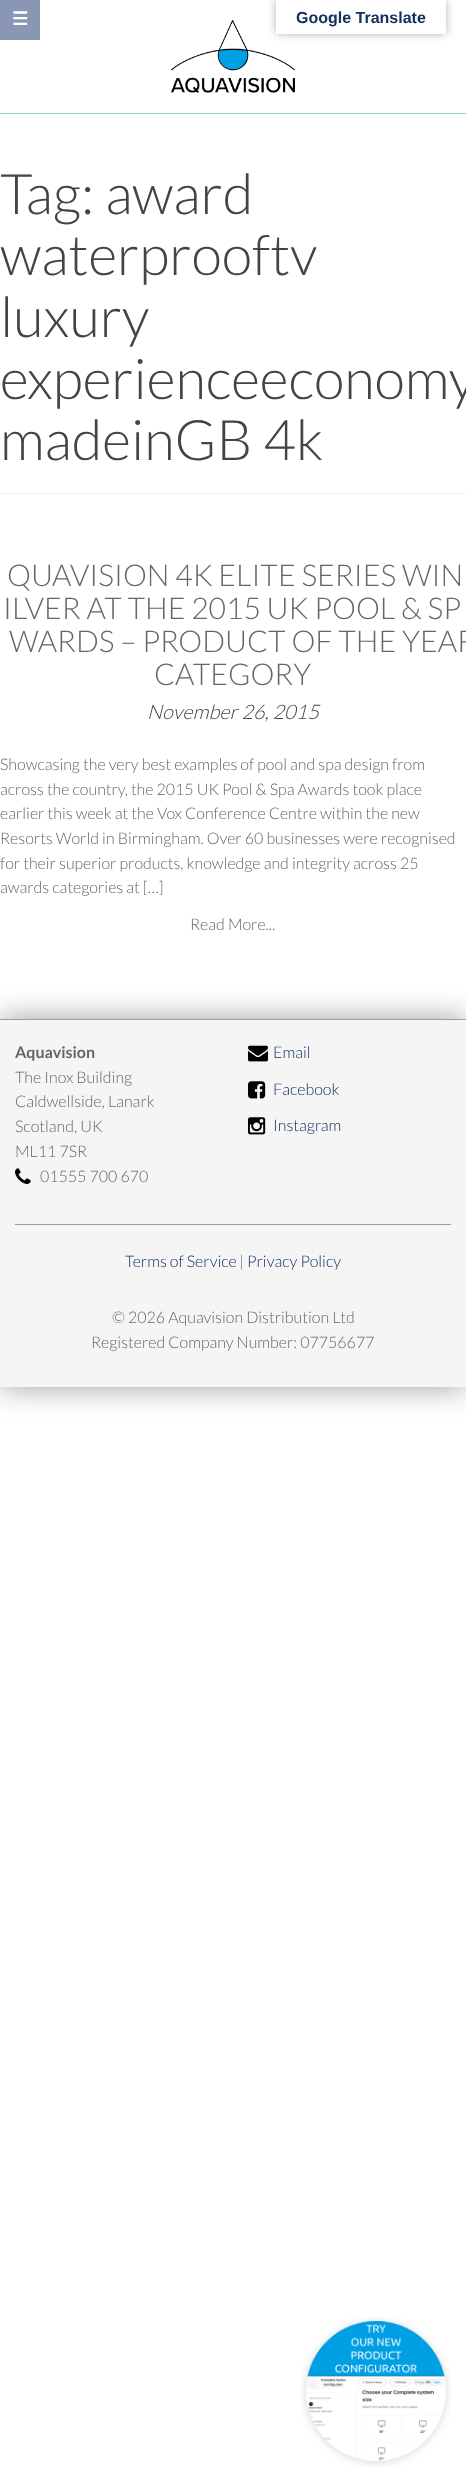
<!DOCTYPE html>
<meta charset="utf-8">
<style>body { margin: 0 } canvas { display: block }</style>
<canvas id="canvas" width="466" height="2481"></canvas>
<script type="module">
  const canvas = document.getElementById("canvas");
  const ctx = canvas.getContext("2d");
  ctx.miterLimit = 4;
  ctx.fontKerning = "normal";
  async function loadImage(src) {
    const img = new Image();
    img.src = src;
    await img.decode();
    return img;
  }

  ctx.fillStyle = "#ffffff";
  ctx.fillRect(0, 0, 466, 2481);
  ctx.fillStyle = "#8997b5";
  ctx.fillRect(0, 0, 40, 40);
  ctx.font = "bold 18px DejaVu Sans";
  ctx.fillStyle = "#ffffff";
  ctx.fillText("☰", 12, 25);
  ctx.drawImage(await loadImage("img1.png"), 171, 20, 124, 73);
  ctx.fillStyle = "rgba(0, 0, 0, 0.3)";
  ctx.filter = "blur(4.5px)";
  ctx.beginPath();
  ctx.rect(276, 0, 170, 34);
  ctx.fill();
  ctx.filter = "none";
  ctx.fillStyle = "#ffffff";
  ctx.fillRect(276, 0, 170, 34);
  ctx.font = "bold 16px Liberation Sans";
  ctx.fillStyle = "#143061";
  ctx.fillText("Google Translate", 296, 23);
  ctx.fillStyle = "#99cccc";
  ctx.fillRect(0, 113, 466, 1);
  ctx.fillStyle = "#eeeeee";
  ctx.fillRect(0, 493, 466, 1);
  ctx.font = "300 56px Lato";
  ctx.fillStyle = "#444444";
  ctx.fillText("Tag: award", 0, 214);
  ctx.fillText("waterprooftv", 0, 275);
  ctx.fillText("luxury", 0, 337);
  ctx.fillText("experienceeconomy", 0, 399);
  ctx.fillText("madeinGB 4k", 0, 460);
  ctx.font = "300 30px Lato";
  ctx.fillStyle = "#666666";
  ctx.fillText("QUAVISION 4K ELITE SERIES WIN", 7, 586);
  ctx.fillText("ILVER AT THE 2015 UK POOL & SP", 3, 619);
  ctx.fillText("WARDS – PRODUCT OF THE YEAR", 9, 652);
  ctx.fillText("CATEGORY", 154, 685);
  ctx.font = "italic 300 20px Lato";
  ctx.fillStyle = "#444444";
  ctx.fillText("November 26, 2015", 147, 719);
  ctx.font = "300 16px Lato";
  ctx.fillStyle = "#666666";
  ctx.fillText("Showcasing the very best examples of pool and spa design from", 0, 770);
  ctx.fillText("across the country, the 2015 UK Pool & Spa Awards took place", 0, 795);
  ctx.fillText("earlier this week at the Vox Conference Centre within the new", 0, 819);
  ctx.fillText("Resorts World in Birmingham. Over 60 businesses were recognised", 0, 844);
  ctx.fillText("for their superior products, knowledge and integrity across 25", 0, 869);
  ctx.fillText("awards categories at […]", 0, 893);
  ctx.fillText("Read More...", 190, 930);
  ctx.drawImage(await loadImage("img2.png"), 301, 2317, 150, 150);
  ctx.fillStyle = "#9c9c9c";
  ctx.filter = "blur(15px)";
  ctx.beginPath();
  ctx.rect(0, 1019, 466, 368);
  ctx.fill();
  ctx.filter = "none";
  ctx.fillStyle = "#f5f5f5";
  ctx.fillRect(0, 1020, 466, 367);
  ctx.fillStyle = "#9c9c9c";
  ctx.fillRect(0, 1019, 466, 1);
  ctx.font = "bold 16px Lato";
  ctx.fillStyle = "#666666";
  ctx.fillText("Aquavision", 15, 1058);
  ctx.font = "300 16px Lato";
  ctx.fillText("The Inox Building", 15, 1083);
  ctx.fillText("Caldwellside, Lanark", 15, 1107);
  ctx.fillText("Scotland, UK", 15, 1132);
  ctx.fillText("ML11 7SR", 15, 1157);
  ctx.drawImage(await loadImage("img3.png"), 15, 1168, 16, 16);
  ctx.fillText("01555 700 670", 40, 1182);
  ctx.drawImage(await loadImage("img4.png"), 248, 1045, 20, 17);
  ctx.fillStyle = "#143061";
  ctx.fillText("Email", 273, 1058);
  ctx.drawImage(await loadImage("img5.png"), 248, 1081, 18, 18);
  ctx.fillText("Facebook", 273, 1095);
  ctx.drawImage(await loadImage("img6.png"), 248, 1117, 18, 18);
  ctx.fillText("Instagram", 273, 1131);
  ctx.fillStyle = "#9c9c9c";
  ctx.fillRect(15, 1224, 436, 1);
  ctx.fillStyle = "#143061";
  ctx.fillText("Terms of Service", 125, 1267);
  ctx.fillStyle = "#666666";
  ctx.fillText("|", 239, 1267);
  ctx.fillStyle = "#143061";
  ctx.fillText("Privacy Policy", 247, 1267);
  ctx.fillStyle = "#666666";
  ctx.fillText("© 2026 Aquavision Distribution Ltd", 112, 1323);
  ctx.fillText("Registered Company Number: 07756677", 91, 1348);
</script>
